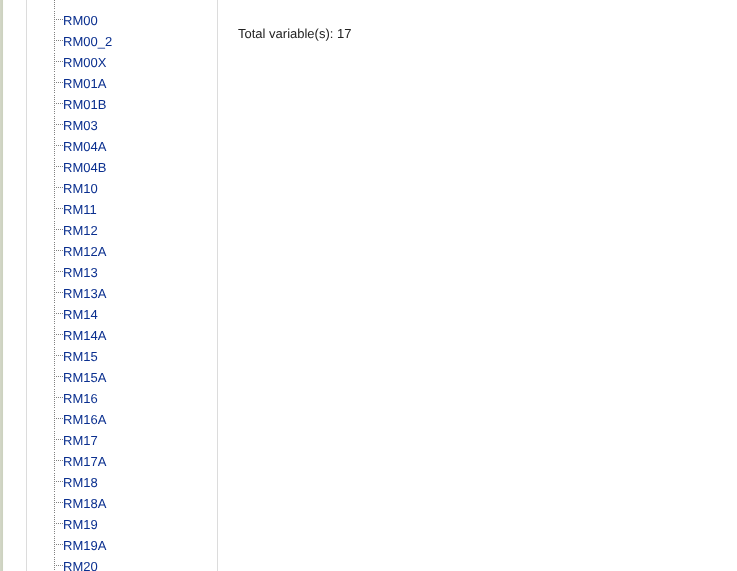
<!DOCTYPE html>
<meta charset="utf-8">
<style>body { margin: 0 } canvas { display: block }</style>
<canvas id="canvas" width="737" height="571"></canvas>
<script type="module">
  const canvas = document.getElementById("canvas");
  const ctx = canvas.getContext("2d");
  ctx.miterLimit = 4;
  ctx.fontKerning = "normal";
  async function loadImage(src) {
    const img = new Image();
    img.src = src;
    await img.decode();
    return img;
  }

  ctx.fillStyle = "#ffffff";
  ctx.fillRect(0, 0, 737, 571);
  ctx.drawImage(await loadImage("img1.png"), 0, 0, 737, 571);
  ctx.fillStyle = "#dcdcdc";
  ctx.beginPath();
  ctx.moveTo(26, -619);
  ctx.lineTo(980, -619);
  ctx.lineTo(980, 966);
  ctx.bezierCurveTo(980, 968, 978, 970, 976, 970);
  ctx.lineTo(30, 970);
  ctx.bezierCurveTo(28, 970, 26, 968, 26, 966);
  ctx.closePath();
  ctx.moveTo(27, -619);
  ctx.lineTo(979, -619);
  ctx.lineTo(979, 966);
  ctx.bezierCurveTo(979, 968, 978, 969, 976, 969);
  ctx.lineTo(30, 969);
  ctx.bezierCurveTo(28, 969, 27, 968, 27, 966);
  ctx.closePath();
  ctx.fill("evenodd");
  ctx.fillRect(217, 0, 1, 571);
  ctx.drawImage(await loadImage("img2.png"), 54, 0, 1, 9);
  ctx.drawImage(await loadImage("img3.png"), 54, 11, 9, 19);
  ctx.font = "13px Liberation Sans";
  ctx.fillStyle = "#0a2f8f";
  ctx.fillText("RM00", 63, 25);
  ctx.drawImage(await loadImage("img3.png"), 54, 32, 9, 19);
  ctx.fillText("RM00_2", 63, 46);
  ctx.drawImage(await loadImage("img3.png"), 54, 53, 9, 19);
  ctx.fillText("RM00X", 63, 67);
  ctx.drawImage(await loadImage("img3.png"), 54, 74, 9, 19);
  ctx.fillText("RM01A", 63, 88);
  ctx.drawImage(await loadImage("img3.png"), 54, 95, 9, 19);
  ctx.fillText("RM01B", 63, 109);
  ctx.drawImage(await loadImage("img3.png"), 54, 116, 9, 19);
  ctx.fillText("RM03", 63, 130);
  ctx.drawImage(await loadImage("img3.png"), 54, 137, 9, 19);
  ctx.fillText("RM04A", 63, 151);
  ctx.drawImage(await loadImage("img3.png"), 54, 158, 9, 19);
  ctx.fillText("RM04B", 63, 172);
  ctx.drawImage(await loadImage("img3.png"), 54, 179, 9, 19);
  ctx.fillText("RM10", 63, 193);
  ctx.drawImage(await loadImage("img3.png"), 54, 200, 9, 19);
  ctx.fillText("RM11", 63, 214);
  ctx.drawImage(await loadImage("img3.png"), 54, 221, 9, 19);
  ctx.fillText("RM12", 63, 235);
  ctx.drawImage(await loadImage("img3.png"), 54, 242, 9, 19);
  ctx.fillText("RM12A", 63, 256);
  ctx.drawImage(await loadImage("img3.png"), 54, 263, 9, 19);
  ctx.fillText("RM13", 63, 277);
  ctx.drawImage(await loadImage("img3.png"), 54, 284, 9, 19);
  ctx.fillText("RM13A", 63, 298);
  ctx.drawImage(await loadImage("img3.png"), 54, 305, 9, 19);
  ctx.fillText("RM14", 63, 319);
  ctx.drawImage(await loadImage("img3.png"), 54, 326, 9, 19);
  ctx.fillText("RM14A", 63, 340);
  ctx.drawImage(await loadImage("img3.png"), 54, 347, 9, 19);
  ctx.fillText("RM15", 63, 361);
  ctx.drawImage(await loadImage("img3.png"), 54, 368, 9, 19);
  ctx.fillText("RM15A", 63, 382);
  ctx.drawImage(await loadImage("img3.png"), 54, 389, 9, 19);
  ctx.fillText("RM16", 63, 403);
  ctx.drawImage(await loadImage("img3.png"), 54, 410, 9, 19);
  ctx.fillText("RM16A", 63, 424);
  ctx.drawImage(await loadImage("img3.png"), 54, 431, 9, 19);
  ctx.fillText("RM17", 63, 445);
  ctx.drawImage(await loadImage("img3.png"), 54, 452, 9, 19);
  ctx.fillText("RM17A", 63, 466);
  ctx.drawImage(await loadImage("img3.png"), 54, 473, 9, 19);
  ctx.fillText("RM18", 63, 487);
  ctx.drawImage(await loadImage("img3.png"), 54, 494, 9, 19);
  ctx.fillText("RM18A", 63, 508);
  ctx.drawImage(await loadImage("img3.png"), 54, 515, 9, 19);
  ctx.fillText("RM19", 63, 529);
  ctx.drawImage(await loadImage("img3.png"), 54, 536, 9, 19);
  ctx.fillText("RM19A", 63, 550);
  ctx.drawImage(await loadImage("img4.png"), 54, 557, 9, 13);
  ctx.fillText("RM20", 63, 571);
  ctx.fillStyle = "#222222";
  ctx.fillText("Total variable(s): 17", 238, 38);
</script>
